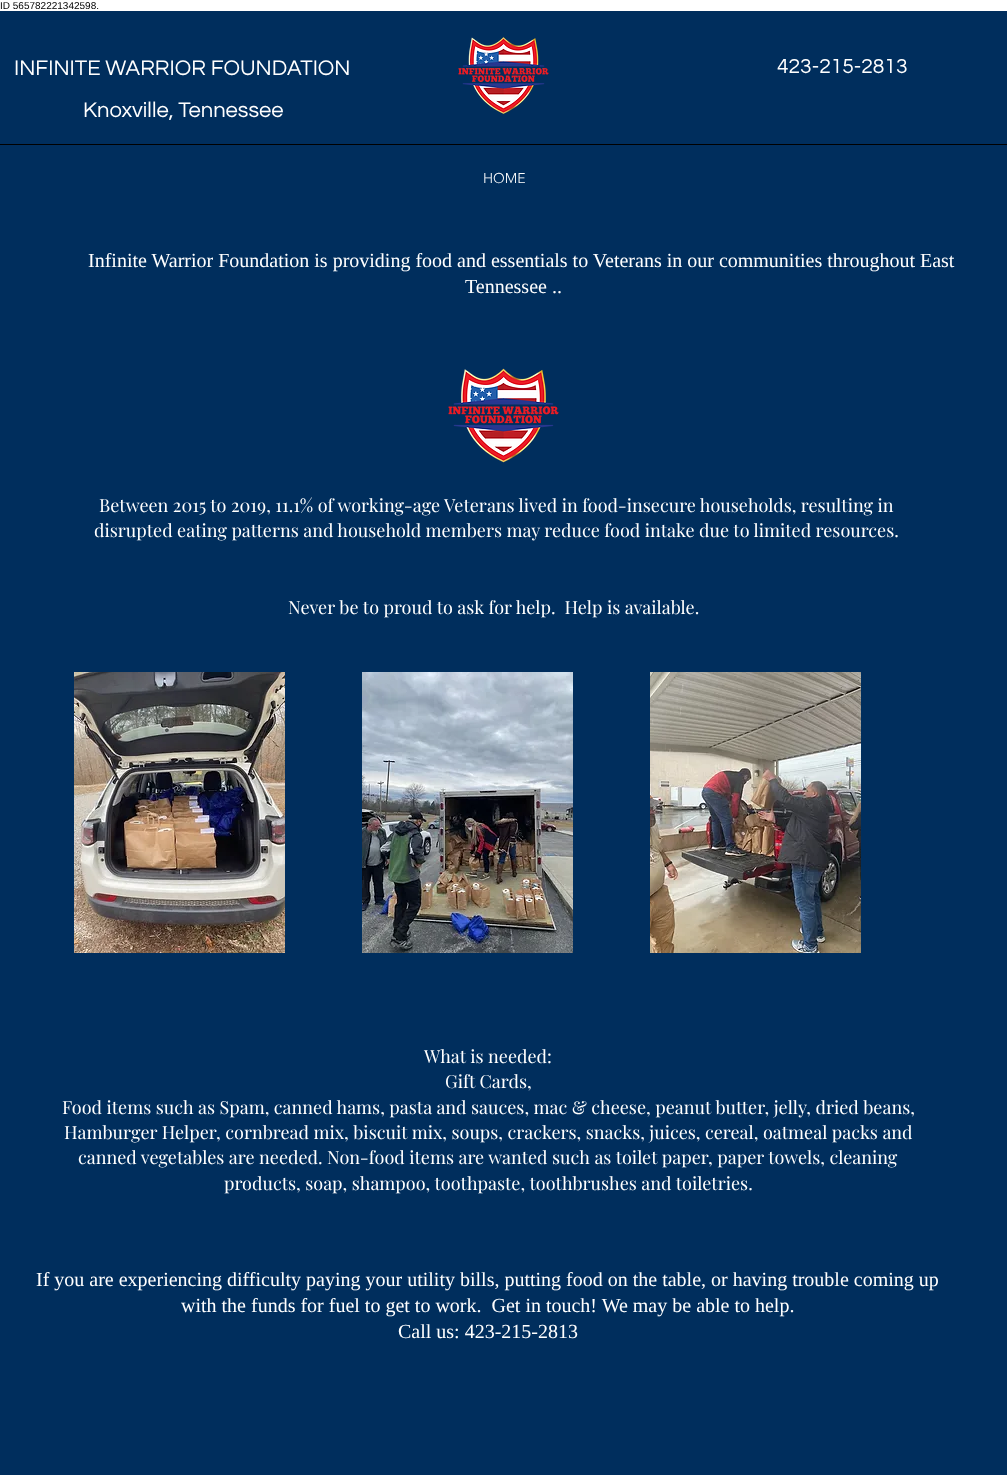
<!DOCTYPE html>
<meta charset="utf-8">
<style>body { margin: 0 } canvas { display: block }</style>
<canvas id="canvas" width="1007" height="1475"></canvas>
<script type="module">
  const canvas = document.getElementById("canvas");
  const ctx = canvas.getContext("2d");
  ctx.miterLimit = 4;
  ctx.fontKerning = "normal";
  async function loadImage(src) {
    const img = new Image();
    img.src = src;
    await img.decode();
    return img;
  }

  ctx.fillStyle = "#ffffff";
  ctx.fillRect(0, 0, 1007, 1475);
  ctx.font = "10px Liberation Sans";
  ctx.fillStyle = "#000000";
  ctx.fillText("ID 565782221342598.", 0, 9);
  ctx.fillStyle = "#002e5d";
  ctx.fillRect(0, 11, 1007, 1464);
  ctx.font = "22px Questrial";
  ctx.fillStyle = "#ffffff";
  ctx.fillText("INFINITE WARRIOR FOUNDATION", 14, 75);
  ctx.drawImage(await loadImage("img1.png"), 458, 37, 91, 77);
  ctx.font = "21px Questrial";
  ctx.fillText("423-215-2813", 777, 73);
  ctx.font = "22px Questrial";
  ctx.fillText("Knoxville, Tennessee", 83, 117);
  ctx.fillStyle = "#000000";
  ctx.fillRect(0, 144, 1007, 1);
  ctx.font = "300 14px 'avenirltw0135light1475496'";
  ctx.fillStyle = "#ffffff";
  ctx.fillText("HOME", 483, 183);
  ctx.font = "20px Liberation Serif";
  ctx.fillText("Infinite Warrior Foundation is providing food and essentials to Veterans in our communities throughout East", 88, 267);
  ctx.fillText("Tennessee ..", 465, 293);
  ctx.drawImage(await loadImage("img2.png"), 448, 368, 111, 95);
  ctx.font = "18px Playfair Display";
  ctx.fillText("Between 2015 to 2019, 11.1% of working-age Veterans lived in food-insecure households, resulting in", 99, 512);
  ctx.fillText("disrupted eating patterns and household members may reduce food intake due to limited resources.", 94, 537);
  ctx.fillText("Never be to proud to ask for help.  Help is available.", 288, 614);
  ctx.drawImage(await loadImage("img3.png"), 74, 672, 211, 281);
  ctx.drawImage(await loadImage("img4.png"), 362, 672, 211, 281);
  ctx.drawImage(await loadImage("img5.png"), 650, 672, 211, 281);
  ctx.fillText("What is needed:", 424, 1063);
  ctx.fillText("Gift Cards,", 445, 1088);
  ctx.fillText("Food items such as Spam, canned hams, pasta and sauces, mac & cheese, peanut butter, jelly, dried beans,", 62, 1114);
  ctx.fillText("Hamburger Helper, cornbread mix, biscuit mix, soups, crackers, snacks, juices, cereal, oatmeal packs and", 64, 1139);
  ctx.fillText("canned vegetables are needed. Non-food items are wanted such as toilet paper, paper towels, cleaning", 78, 1164);
  ctx.fillText("products, soap, shampoo, toothpaste, toothbrushes and toiletries.", 224, 1190);
  ctx.font = "20px Liberation Serif";
  ctx.fillText("If you are experiencing difficulty paying your utility bills, putting food on the table, or having trouble coming up", 36, 1286);
  ctx.fillText("with the funds for fuel to get to work.  Get in touch! We may be able to help.", 181, 1312);
  ctx.fillText("Call us: 423-215-2813", 398, 1338);
</script>
